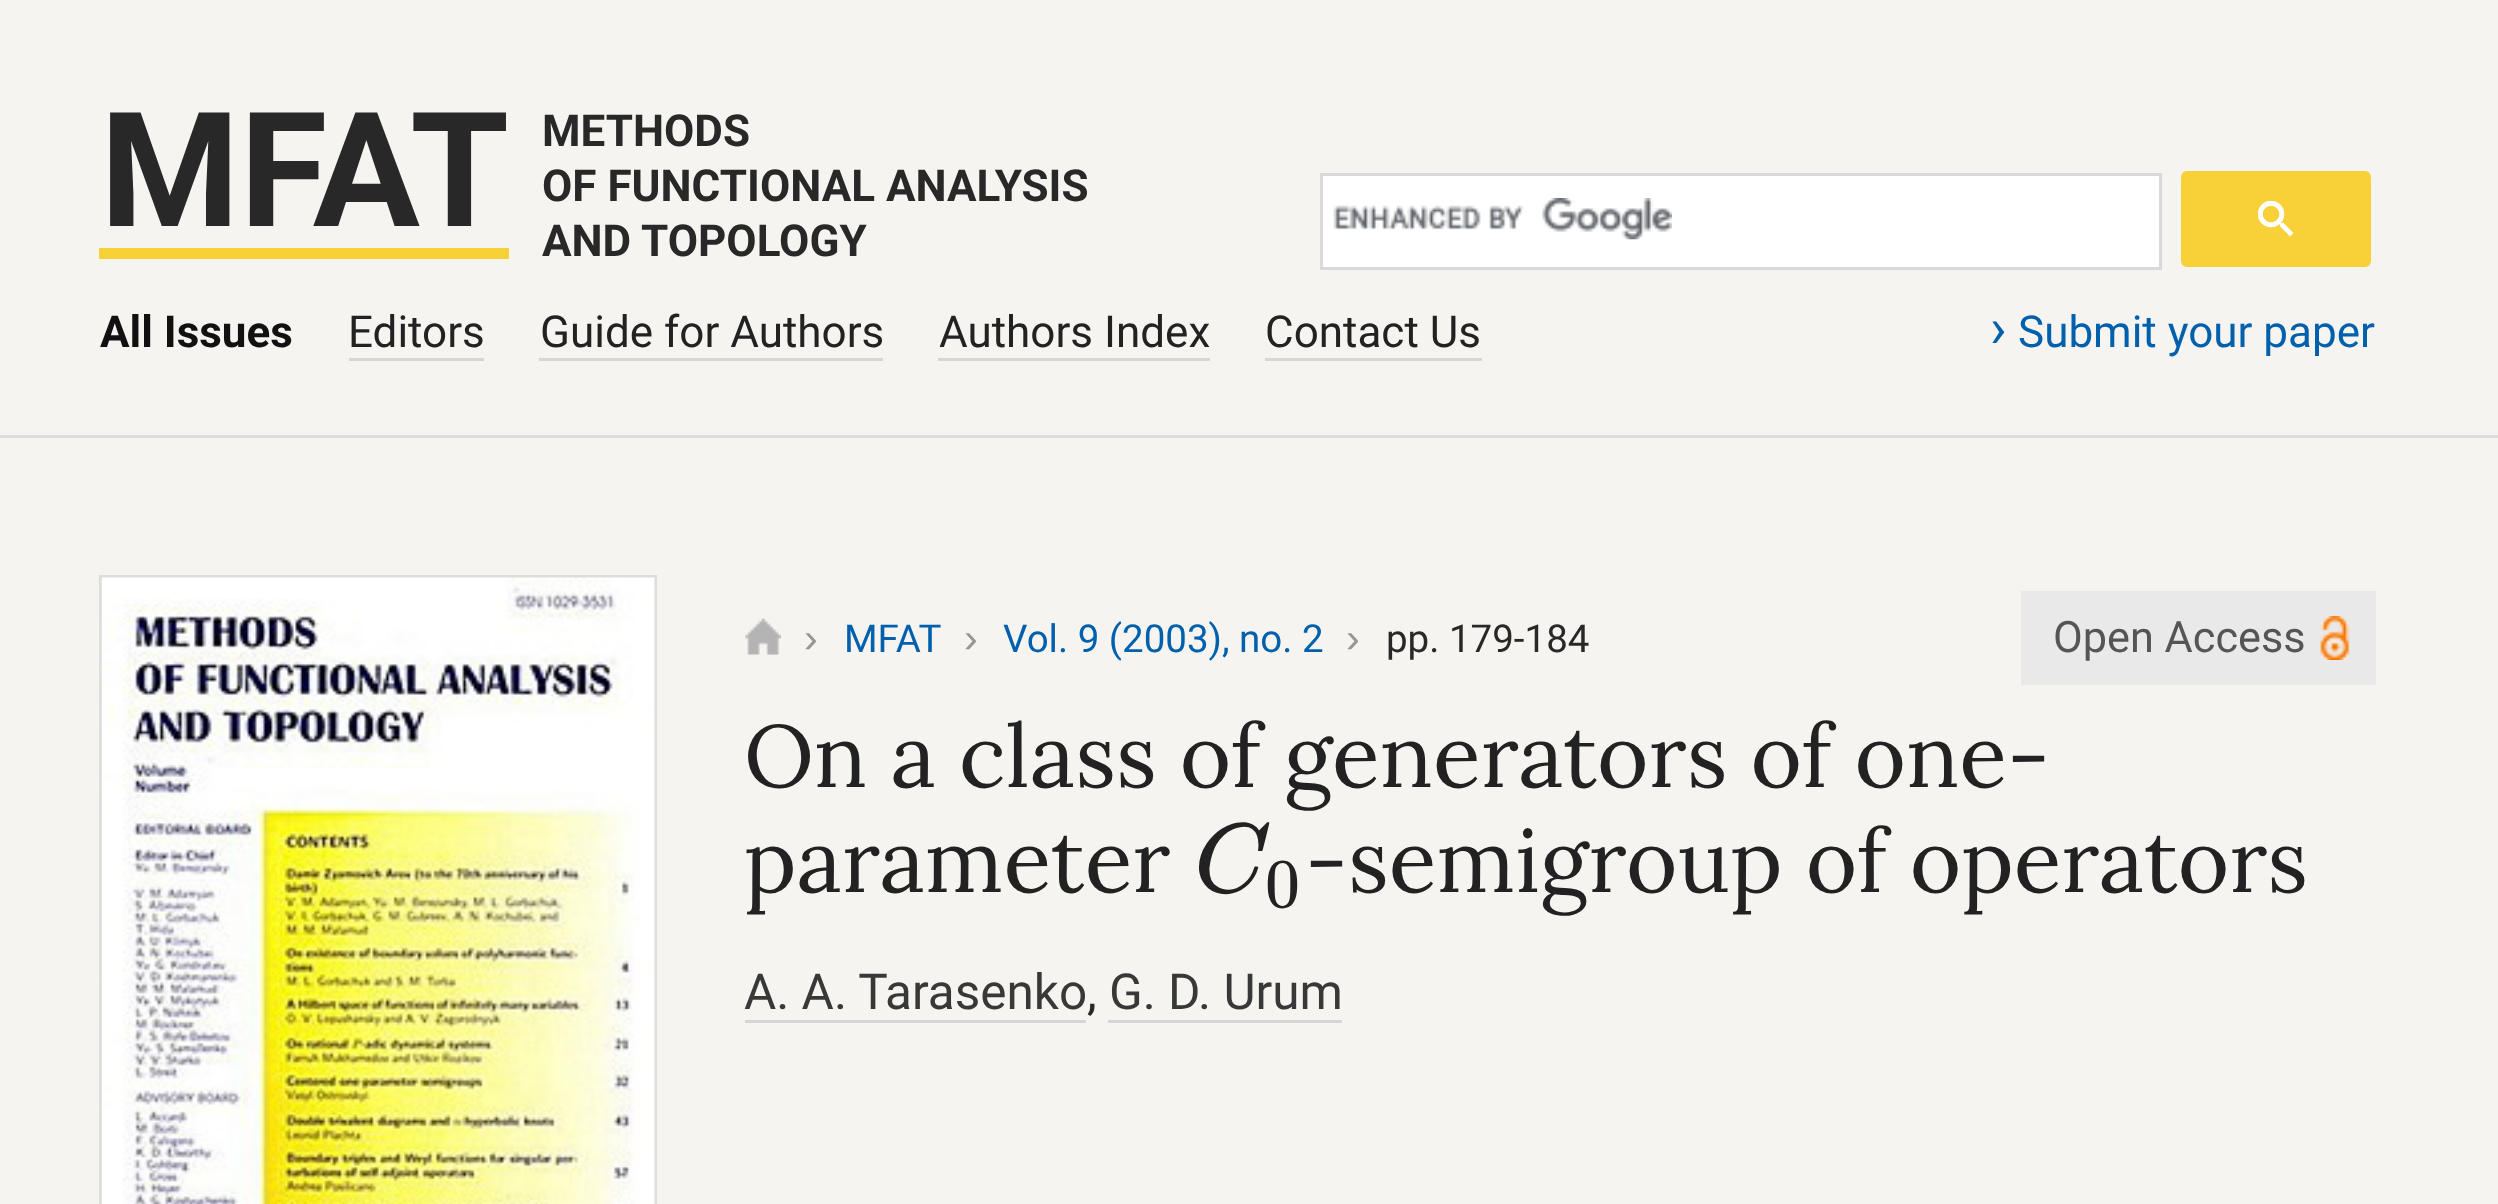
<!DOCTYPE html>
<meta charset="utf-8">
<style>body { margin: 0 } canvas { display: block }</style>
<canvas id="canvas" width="2498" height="1204"></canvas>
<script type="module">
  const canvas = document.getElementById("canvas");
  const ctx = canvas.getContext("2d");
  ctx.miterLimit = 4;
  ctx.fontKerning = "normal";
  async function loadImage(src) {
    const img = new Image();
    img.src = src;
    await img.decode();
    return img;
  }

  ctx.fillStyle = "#f5f4f1";
  ctx.fillRect(0, 0, 2498, 1204);
  ctx.fillStyle = "#dddddd";
  ctx.fillRect(0, 435, 2498, 3);
  ctx.fillStyle = "#f7d137";
  ctx.fillRect(99, 248, 410, 11);
  ctx.font = "bold 159.5px Roboto";
  ctx.fillStyle = "#282828";
  ctx.fillText("MFAT", 100, 226);
  ctx.font = "bold 44px Roboto";
  ctx.fillText("METHODS", 542, 146);
  ctx.fillText("OF FUNCTIONAL ANALYSIS", 542, 201);
  ctx.fillText("AND TOPOLOGY", 542, 256);
  ctx.fillStyle = "#ffffff";
  ctx.beginPath();
  ctx.rect(1321.5, 174.5, 839, 94);
  ctx.fill();
  ctx.strokeStyle = "#d9d9d9";
  ctx.lineWidth = 3;
  ctx.stroke();
  ctx.drawImage(await loadImage("img1.png"), 1333, 198, 339, 42);
  ctx.fillStyle = "#f7d137";
  ctx.beginPath();
  ctx.roundRect(2182.5, 172.5, 187, 93, 4.5);
  ctx.fill();
  ctx.strokeStyle = "#f7d137";
  ctx.stroke();
  ctx.drawImage(await loadImage("img2.png"), 2258, 201, 36, 36);
  ctx.fillStyle = "#111111";
  ctx.fillText("All Issues", 100, 347);
  ctx.font = "44px Roboto";
  ctx.fillStyle = "#222222";
  ctx.fillText("Editors", 348, 347);
  ctx.fillStyle = "#d7d6d6";
  ctx.fillRect(349, 358, 135, 3);
  ctx.fillStyle = "#222222";
  ctx.fillText("Guide for Authors", 540, 347);
  ctx.fillStyle = "#d7d6d6";
  ctx.fillRect(539, 358, 344, 3);
  ctx.fillStyle = "#222222";
  ctx.fillText("Authors Index", 939, 347);
  ctx.fillStyle = "#d7d6d6";
  ctx.fillRect(938, 358, 272, 3);
  ctx.fillStyle = "#222222";
  ctx.fillText("Contact Us", 1265, 347);
  ctx.fillStyle = "#d7d6d6";
  ctx.fillRect(1265, 358, 217, 3);
  ctx.font = "55px Roboto";
  ctx.fillStyle = "#0060ac";
  ctx.fillText("›", 1990, 347);
  ctx.font = "44px Roboto";
  ctx.fillText("Submit your paper", 2018, 347);
  ctx.strokeStyle = "#dddddd";
  ctx.strokeRect(100.5, 576.5, 555, 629);
  ctx.drawImage(await loadImage("img3.png"), 101, 577, 554, 627);
  ctx.drawImage(await loadImage("img4.png"), 745, 618, 36, 37);
  ctx.font = "41px Liberation Sans";
  ctx.fillStyle = "#969696";
  ctx.fillText("›", 804, 652);
  ctx.font = "38.5px Roboto";
  ctx.fillStyle = "#0060ac";
  ctx.fillText("MFAT", 844, 652);
  ctx.font = "41px Liberation Sans";
  ctx.fillStyle = "#969696";
  ctx.fillText("›", 964, 652);
  ctx.font = "38.5px Roboto";
  ctx.fillStyle = "#0060ac";
  ctx.fillText("Vol. 9 (2003), no. 2", 1003, 652);
  ctx.font = "41px Liberation Sans";
  ctx.fillStyle = "#969696";
  ctx.fillText("›", 1346, 652);
  ctx.font = "38.5px Roboto";
  ctx.fillStyle = "#282828";
  ctx.fillText("pp. 179-184", 1386, 652);
  ctx.fillStyle = "#e9e9e9";
  ctx.fillRect(2021, 591, 355, 94);
  ctx.drawImage(await loadImage("img5.png"), 2320, 616, 31, 44);
  ctx.font = "43.25px Roboto";
  ctx.fillStyle = "#555555";
  ctx.fillText("Open Access", 2053, 652);
  ctx.font = "88px Lora";
  ctx.fillStyle = "#222222";
  ctx.fillText("On a class of generators of one-", 744, 787);
  ctx.fillText("parameter", 744, 892);
  ctx.font = "italic 99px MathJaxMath";
  ctx.fillText("C", 1194, 892);
  ctx.font = "70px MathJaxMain";
  ctx.fillText("0", 1265, 907);
  ctx.font = "88px Lora";
  ctx.fillText("-semigroup of operators", 1305, 892);
  ctx.font = "49.5px Roboto";
  ctx.fillStyle = "#383838";
  ctx.fillText("A. A. Tarasenko", 744, 1009);
  ctx.fillStyle = "#d7d6d6";
  ctx.fillRect(745, 1020, 341, 3);
  ctx.fillStyle = "#282828";
  ctx.fillText(",", 1087, 1009);
  ctx.fillStyle = "#383838";
  ctx.fillText("G. D. Urum", 1109, 1009);
  ctx.fillStyle = "#d7d6d6";
  ctx.fillRect(1108, 1020, 234, 3);
</script>
